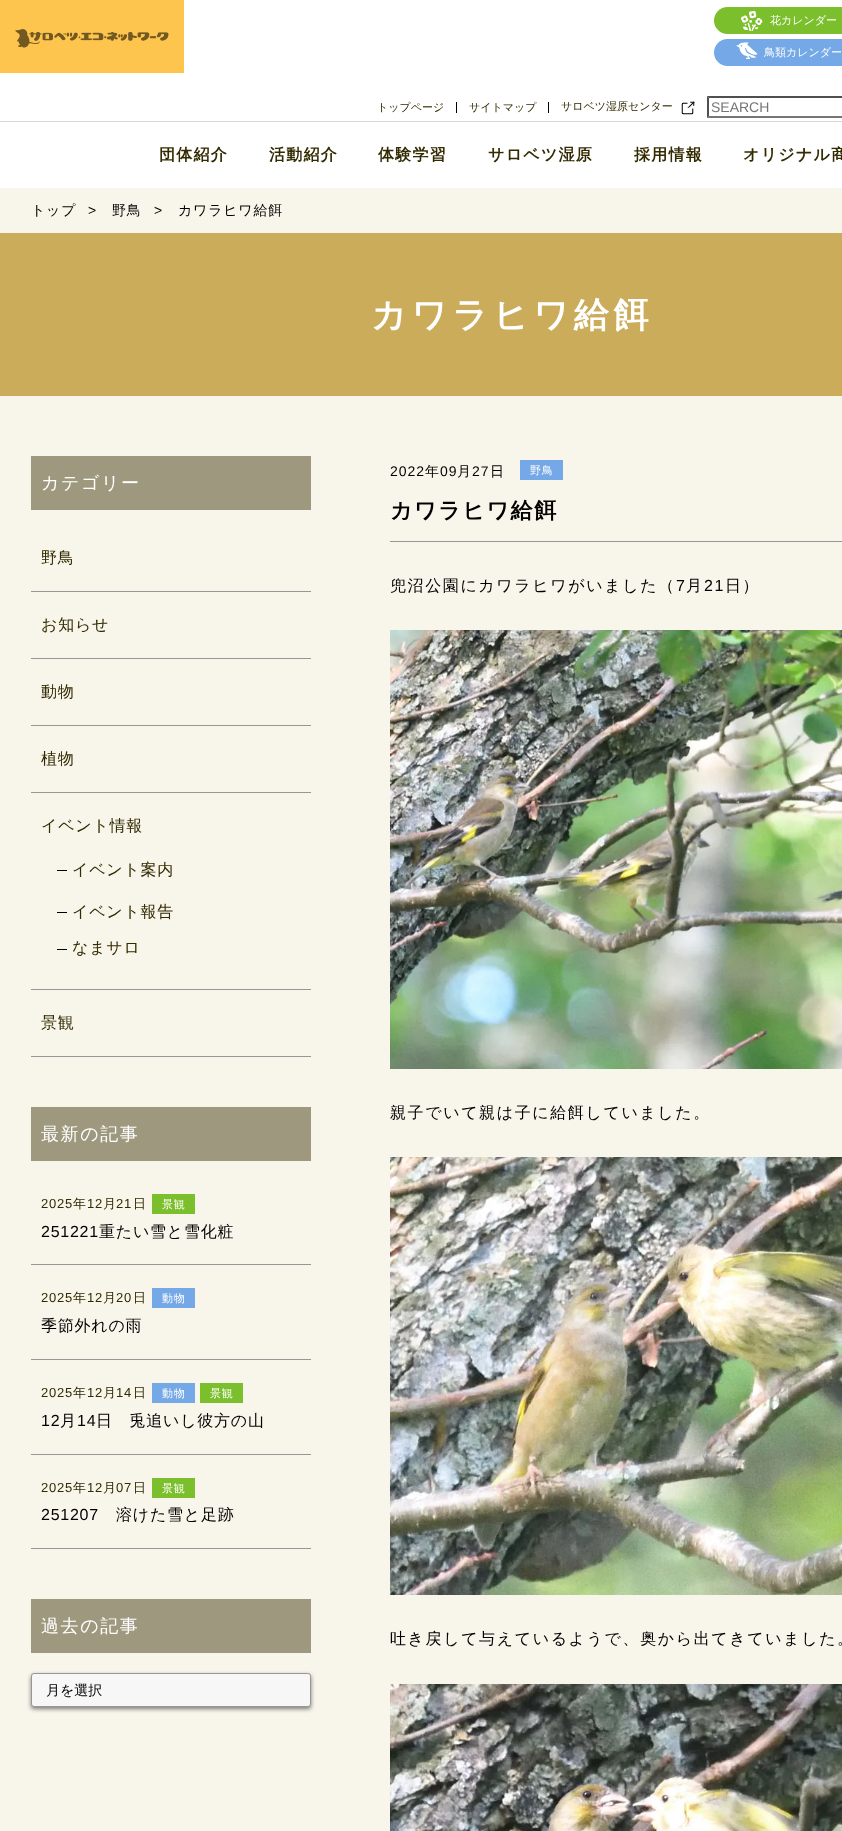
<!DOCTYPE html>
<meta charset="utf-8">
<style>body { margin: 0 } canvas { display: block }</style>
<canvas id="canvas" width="842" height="1831"></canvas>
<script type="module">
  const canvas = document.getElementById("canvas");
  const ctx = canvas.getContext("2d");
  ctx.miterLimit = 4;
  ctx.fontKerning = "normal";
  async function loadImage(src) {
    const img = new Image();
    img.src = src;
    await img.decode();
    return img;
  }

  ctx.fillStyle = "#ffffff";
  ctx.fillRect(0, 0, 842, 1831);
  ctx.fillStyle = "#d8d8d8";
  ctx.fillRect(0, 121, 842, 1);
  ctx.fillStyle = "#fec54e";
  ctx.fillRect(0, 0, 184, 73);
  ctx.drawImage(await loadImage("img1.png"), 15, 29, 154, 19);
  ctx.fillStyle = "#7cbf2d";
  ctx.beginPath();
  ctx.roundRect(714, 7, 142, 27, 13.5);
  ctx.fill();
  ctx.drawImage(await loadImage("img2.png"), 741, 10, 22, 21);
  ctx.font = "500 11px WenQuanYi Zen Hei";
  ctx.fillStyle = "#ffffff";
  ctx.fillText("花カレンダー", 770, 24);
  ctx.fillStyle = "#75a8e6";
  ctx.beginPath();
  ctx.roundRect(714, 39, 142, 27, 13.5);
  ctx.fill();
  ctx.drawImage(await loadImage("img3.png"), 736, 42, 22, 17);
  ctx.fillStyle = "#ffffff";
  ctx.fillText("鳥類カレンダー", 764, 56);
  ctx.fillStyle = "#000000";
  ctx.fillRect(456, 102, 1, 11);
  ctx.fillStyle = "#322a00";
  ctx.fillText("トップページ", 377, 111);
  ctx.fillStyle = "#000000";
  ctx.fillRect(548, 102, 1, 11);
  ctx.fillStyle = "#322a00";
  ctx.fillText("サイトマップ", 469, 111);
  ctx.fillText("サロベツ湿原センター", 561, 110);
  ctx.drawImage(await loadImage("img4.png"), 681, 101, 14, 14);
  ctx.fillStyle = "#4f4f4f";
  ctx.beginPath();
  ctx.moveTo(707, 96);
  ctx.lineTo(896, 96);
  ctx.lineTo(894, 98);
  ctx.lineTo(709, 98);
  ctx.closePath();
  ctx.fill();
  ctx.fillStyle = "#767676";
  ctx.beginPath();
  ctx.moveTo(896, 118);
  ctx.lineTo(707, 118);
  ctx.lineTo(709, 116);
  ctx.lineTo(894, 116);
  ctx.closePath();
  ctx.fill();
  ctx.fillStyle = "#4f4f4f";
  ctx.beginPath();
  ctx.moveTo(707, 118);
  ctx.lineTo(707, 96);
  ctx.lineTo(709, 98);
  ctx.lineTo(709, 116);
  ctx.closePath();
  ctx.fill();
  ctx.font = "14px Liberation Sans";
  ctx.fillStyle = "#757575";
  ctx.fillText("SEARCH", 711, 112);
  ctx.letterSpacing = "1.25px";
  ctx.font = "bold 16px WenQuanYi Zen Hei";
  ctx.fillStyle = "#322a00";
  ctx.fillText("団体紹介", 159, 160);
  ctx.fillText("活動紹介", 269, 160);
  ctx.fillText("体験学習", 378, 160);
  ctx.fillText("サロベツ湿原", 488, 160);
  ctx.fillText("採用情報", 634, 160);
  ctx.fillText("オリジナル商", 743, 160);
  ctx.fillStyle = "#f8f6eb";
  ctx.fillRect(0, 188, 842, 45);
  ctx.letterSpacing = "0.75px";
  ctx.font = "500 14px WenQuanYi Zen Hei";
  ctx.fillStyle = "#000000";
  ctx.fillText("トップ", 31, 215);
  ctx.font = "14px Liberation Sans";
  ctx.fillText(">", 88, 215);
  ctx.font = "500 14px WenQuanYi Zen Hei";
  ctx.fillText("野鳥", 112, 215);
  ctx.font = "14px Liberation Sans";
  ctx.fillText(">", 154, 215);
  ctx.font = "500 14px WenQuanYi Zen Hei";
  ctx.fillText("カワラヒワ給餌", 178, 215);
  ctx.fillStyle = "#f8f6eb";
  ctx.fillRect(0, 396, 842, 1435);
  ctx.fillStyle = "#caac5b";
  ctx.fillRect(0, 233, 842, 163);
  ctx.letterSpacing = "4.75px";
  ctx.font = "bold 35px WenQuanYi Zen Hei";
  ctx.fillStyle = "#ffffff";
  ctx.fillText("カワラヒワ給餌", 371, 327);
  ctx.fillStyle = "#9e997e";
  ctx.fillRect(31, 456, 280, 54);
  ctx.letterSpacing = "1.6px";
  ctx.font = "500 18px WenQuanYi Zen Hei";
  ctx.fillStyle = "#ffffff";
  ctx.fillText("カテゴリー", 41, 489);
  ctx.fillStyle = "#979797";
  ctx.fillRect(31, 591, 280, 1);
  ctx.letterSpacing = "0.75px";
  ctx.font = "500 16px WenQuanYi Zen Hei";
  ctx.fillStyle = "#322a00";
  ctx.fillText("野鳥", 41, 563);
  ctx.fillStyle = "#979797";
  ctx.fillRect(31, 658, 280, 1);
  ctx.fillStyle = "#322a00";
  ctx.fillText("お知らせ", 41, 630);
  ctx.fillStyle = "#979797";
  ctx.fillRect(31, 725, 280, 1);
  ctx.fillStyle = "#322a00";
  ctx.fillText("動物", 41, 697);
  ctx.fillStyle = "#979797";
  ctx.fillRect(31, 792, 280, 1);
  ctx.fillStyle = "#322a00";
  ctx.fillText("植物", 41, 764);
  ctx.fillStyle = "#979797";
  ctx.fillRect(31, 989, 280, 1);
  ctx.fillStyle = "#322a00";
  ctx.fillText("イベント情報", 41, 831);
  ctx.fillStyle = "#000000";
  ctx.fillRect(57, 870, 10, 1);
  ctx.fillStyle = "#322a00";
  ctx.fillText("イベント案内", 72, 875);
  ctx.fillStyle = "#000000";
  ctx.fillRect(57, 912, 10, 1);
  ctx.fillStyle = "#322a00";
  ctx.fillText("イベント報告", 72, 917);
  ctx.fillStyle = "#000000";
  ctx.fillRect(57, 949, 10, 1);
  ctx.fillStyle = "#322a00";
  ctx.fillText("なまサロ", 72, 953);
  ctx.fillStyle = "#979797";
  ctx.fillRect(31, 1056, 280, 1);
  ctx.fillStyle = "#322a00";
  ctx.fillText("景観", 41, 1028);
  ctx.fillStyle = "#9e997e";
  ctx.fillRect(31, 1107, 280, 54);
  ctx.letterSpacing = "1.6px";
  ctx.font = "500 18px WenQuanYi Zen Hei";
  ctx.fillStyle = "#ffffff";
  ctx.fillText("最新の記事", 41, 1140);
  ctx.fillStyle = "#979797";
  ctx.fillRect(31, 1264, 280, 1);
  ctx.letterSpacing = "0.75px";
  ctx.font = "13px Liberation Sans";
  ctx.fillStyle = "#322a00";
  ctx.fillText("2025", 41, 1208);
  ctx.font = "500 13px WenQuanYi Zen Hei";
  ctx.fillText("年", 73, 1208);
  ctx.font = "13px Liberation Sans";
  ctx.fillText("12", 87, 1208);
  ctx.font = "500 13px WenQuanYi Zen Hei";
  ctx.fillText("月", 103, 1208);
  ctx.font = "13px Liberation Sans";
  ctx.fillText("21", 116, 1208);
  ctx.font = "500 13px WenQuanYi Zen Hei";
  ctx.fillText("日", 133, 1208);
  ctx.fillStyle = "#7cbf2d";
  ctx.fillRect(152, 1194, 43, 20);
  ctx.font = "500 11px WenQuanYi Zen Hei";
  ctx.fillStyle = "#ffffff";
  ctx.fillText("景観", 162, 1208);
  ctx.font = "16px Liberation Sans";
  ctx.fillStyle = "#000000";
  ctx.fillText("251221", 41, 1237);
  ctx.font = "500 16px WenQuanYi Zen Hei";
  ctx.fillText("重たい雪と雪化粧", 99, 1237);
  ctx.fillStyle = "#979797";
  ctx.fillRect(31, 1359, 280, 1);
  ctx.font = "13px Liberation Sans";
  ctx.fillStyle = "#322a00";
  ctx.fillText("2025", 41, 1302);
  ctx.font = "500 13px WenQuanYi Zen Hei";
  ctx.fillText("年", 73, 1302);
  ctx.font = "13px Liberation Sans";
  ctx.fillText("12", 87, 1302);
  ctx.font = "500 13px WenQuanYi Zen Hei";
  ctx.fillText("月", 103, 1302);
  ctx.font = "13px Liberation Sans";
  ctx.fillText("20", 116, 1302);
  ctx.font = "500 13px WenQuanYi Zen Hei";
  ctx.fillText("日", 133, 1302);
  ctx.fillStyle = "#75a8e6";
  ctx.fillRect(152, 1288, 43, 20);
  ctx.font = "500 11px WenQuanYi Zen Hei";
  ctx.fillStyle = "#ffffff";
  ctx.fillText("動物", 162, 1302);
  ctx.font = "500 16px WenQuanYi Zen Hei";
  ctx.fillStyle = "#000000";
  ctx.fillText("季節外れの雨", 41, 1331);
  ctx.fillStyle = "#979797";
  ctx.fillRect(31, 1454, 280, 1);
  ctx.font = "13px Liberation Sans";
  ctx.fillStyle = "#322a00";
  ctx.fillText("2025", 41, 1397);
  ctx.font = "500 13px WenQuanYi Zen Hei";
  ctx.fillText("年", 73, 1397);
  ctx.font = "13px Liberation Sans";
  ctx.fillText("12", 87, 1397);
  ctx.font = "500 13px WenQuanYi Zen Hei";
  ctx.fillText("月", 103, 1397);
  ctx.font = "13px Liberation Sans";
  ctx.fillText("14", 116, 1397);
  ctx.font = "500 13px WenQuanYi Zen Hei";
  ctx.fillText("日", 133, 1397);
  ctx.fillStyle = "#75a8e6";
  ctx.fillRect(152, 1383, 43, 20);
  ctx.font = "500 11px WenQuanYi Zen Hei";
  ctx.fillStyle = "#ffffff";
  ctx.fillText("動物", 162, 1397);
  ctx.fillStyle = "#7cbf2d";
  ctx.fillRect(200, 1383, 43, 20);
  ctx.fillStyle = "#ffffff";
  ctx.fillText("景観", 210, 1397);
  ctx.font = "16px Liberation Sans";
  ctx.fillStyle = "#000000";
  ctx.fillText("12", 41, 1426);
  ctx.font = "500 16px WenQuanYi Zen Hei";
  ctx.fillText("月", 60, 1426);
  ctx.font = "16px Liberation Sans";
  ctx.fillText("14", 77, 1426);
  ctx.font = "500 16px WenQuanYi Zen Hei";
  ctx.fillText("日　兎追いし彼方の山", 96, 1426);
  ctx.fillStyle = "#979797";
  ctx.fillRect(31, 1548, 280, 1);
  ctx.font = "13px Liberation Sans";
  ctx.fillStyle = "#322a00";
  ctx.fillText("2025", 41, 1492);
  ctx.font = "500 13px WenQuanYi Zen Hei";
  ctx.fillText("年", 73, 1492);
  ctx.font = "13px Liberation Sans";
  ctx.fillText("12", 87, 1492);
  ctx.font = "500 13px WenQuanYi Zen Hei";
  ctx.fillText("月", 103, 1492);
  ctx.font = "13px Liberation Sans";
  ctx.fillText("07", 116, 1492);
  ctx.font = "500 13px WenQuanYi Zen Hei";
  ctx.fillText("日", 133, 1492);
  ctx.fillStyle = "#7cbf2d";
  ctx.fillRect(152, 1478, 43, 20);
  ctx.font = "500 11px WenQuanYi Zen Hei";
  ctx.fillStyle = "#ffffff";
  ctx.fillText("景観", 162, 1492);
  ctx.font = "16px Liberation Sans";
  ctx.fillStyle = "#000000";
  ctx.fillText("251207", 41, 1520);
  ctx.font = "500 16px WenQuanYi Zen Hei";
  ctx.fillText("溶けた雪と足跡", 116, 1520);
  ctx.fillStyle = "#9e997e";
  ctx.fillRect(31, 1599, 280, 54);
  ctx.letterSpacing = "1.6px";
  ctx.font = "500 18px WenQuanYi Zen Hei";
  ctx.fillStyle = "#ffffff";
  ctx.fillText("過去の記事", 41, 1632);
  ctx.fillStyle = "rgba(0, 0, 0, 0.5)";
  ctx.filter = "blur(2px)";
  ctx.beginPath();
  ctx.roundRect(31, 1675, 280, 34, 3);
  ctx.fill();
  ctx.filter = "none";
  ctx.fillStyle = "#f7f7f7";
  ctx.beginPath();
  ctx.roundRect(31.5, 1673.5, 279, 33, 2.5);
  ctx.fill();
  ctx.strokeStyle = "#979797";
  ctx.stroke();
  ctx.letterSpacing = "0px";
  ctx.font = "500 14px WenQuanYi Zen Hei";
  ctx.fillStyle = "#000000";
  ctx.fillText("月を選択", 46, 1695);
  ctx.letterSpacing = "1px";
  ctx.font = "14px Liberation Sans";
  ctx.fillText("2022", 390, 476);
  ctx.font = "500 14px WenQuanYi Zen Hei";
  ctx.fillText("年", 425, 476);
  ctx.font = "14px Liberation Sans";
  ctx.fillText("09", 440, 476);
  ctx.font = "500 14px WenQuanYi Zen Hei";
  ctx.fillText("月", 457, 476);
  ctx.font = "14px Liberation Sans";
  ctx.fillText("27", 472, 476);
  ctx.font = "500 14px WenQuanYi Zen Hei";
  ctx.fillText("日", 490, 476);
  ctx.fillStyle = "#75a8e6";
  ctx.fillRect(520, 460, 43, 20);
  ctx.letterSpacing = "0.75px";
  ctx.font = "500 11px WenQuanYi Zen Hei";
  ctx.fillStyle = "#ffffff";
  ctx.fillText("野鳥", 530, 474);
  ctx.fillStyle = "#979797";
  ctx.fillRect(390, 541, 452, 1);
  ctx.letterSpacing = "1.6px";
  ctx.font = "bold 22px WenQuanYi Zen Hei";
  ctx.fillStyle = "#000000";
  ctx.fillText("カワラヒワ給餌", 390, 518);
  ctx.font = "500 16px WenQuanYi Zen Hei";
  ctx.fillText("兜沼公園にカワラヒワがいました（", 390, 591);
  ctx.font = "16px Liberation Sans";
  ctx.fillText("7", 676, 591);
  ctx.font = "500 16px WenQuanYi Zen Hei";
  ctx.fillText("月", 686, 591);
  ctx.font = "16px Liberation Sans";
  ctx.fillText("21", 704, 591);
  ctx.font = "500 16px WenQuanYi Zen Hei";
  ctx.fillText("日）", 725, 591);
  ctx.drawImage(await loadImage("img5.png"), 390, 630, 452, 439);
  ctx.fillText("親子でいて親は子に給餌していました。", 390, 1118);
  ctx.drawImage(await loadImage("img6.png"), 390, 1157, 452, 438);
  ctx.fillText("吐き戻して与えているようで、奥から出てきていました。", 390, 1644);
  ctx.drawImage(await loadImage("img7.png"), 390, 1684, 452, 147);
</script>
